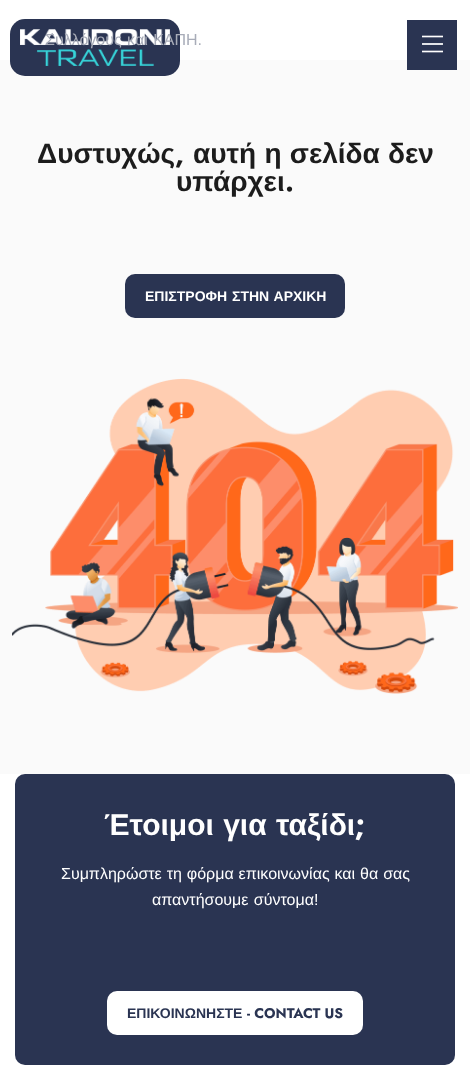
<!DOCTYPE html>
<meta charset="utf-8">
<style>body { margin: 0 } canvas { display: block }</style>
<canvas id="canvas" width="470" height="1079"></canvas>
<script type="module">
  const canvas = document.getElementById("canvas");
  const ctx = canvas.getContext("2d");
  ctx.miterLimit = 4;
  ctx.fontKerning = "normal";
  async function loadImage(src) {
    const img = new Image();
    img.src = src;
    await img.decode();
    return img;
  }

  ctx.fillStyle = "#ffffff";
  ctx.fillRect(0, 0, 470, 1079);
  ctx.fillStyle = "#fafafa";
  ctx.fillRect(0, 60, 470, 714);
  ctx.fillStyle = "#2a3452";
  ctx.beginPath();
  ctx.roundRect(10, 19, 170, 57, 15);
  ctx.fill();
  ctx.drawImage(await loadImage("img1.png"), 20, 29, 150, 37);
  ctx.fillRect(407, 20, 50, 50);
  ctx.drawImage(await loadImage("img2.png"), 422, 35, 21, 18);
  ctx.wordSpacing = "1px";
  ctx.font = "16px Liberation Sans";
  ctx.fillStyle = "#a8acb8";
  ctx.fillText("Συλλόγους και ΚΑΠΗ.", 45, 45);
  ctx.wordSpacing = "0px";
  ctx.font = "bold 28px Liberation Sans";
  ctx.fillStyle = "#1c1c1c";
  ctx.fillText("Δυστυχώς", 37, 163);
  ctx.font = "bold 28px Jost";
  ctx.fillText(",", 175, 163);
  ctx.wordSpacing = "0.5px";
  ctx.font = "bold 28px Liberation Sans";
  ctx.fillText("αυτή η σελίδα δεν", 193, 163);
  ctx.wordSpacing = "0px";
  ctx.fillText("υπάρχει", 176, 191);
  ctx.font = "bold 28px Jost";
  ctx.fillText(".", 285, 191);
  ctx.fillStyle = "#2a3452";
  ctx.beginPath();
  ctx.roundRect(125, 274, 220, 44, 10);
  ctx.fill();
  ctx.wordSpacing = "1px";
  ctx.font = "bold 14px Liberation Sans";
  ctx.fillStyle = "#ffffff";
  ctx.fillText("ΕΠΙΣΤΡΟΦΗ ΣΤΗΝ ΑΡΧΙΚΗ", 145, 301);
  ctx.drawImage(await loadImage("img3.png"), 12, 378, 446, 316);
  ctx.fillStyle = "#2a3452";
  ctx.beginPath();
  ctx.roundRect(15, 774, 440, 291, 10);
  ctx.fill();
  ctx.font = "bold 30px Liberation Sans";
  ctx.fillStyle = "#ffffff";
  ctx.fillText("Έτοιμοι για ταξίδι", 104, 835);
  ctx.wordSpacing = "0px";
  ctx.font = "bold 30px Jost";
  ctx.fillText(";", 354, 835);
  ctx.wordSpacing = "0.5px";
  ctx.font = "16px Liberation Sans";
  ctx.fillText("Συμπληρώστε τη φόρμα επικοινωνίας και θα σας", 61, 879);
  ctx.wordSpacing = "1px";
  ctx.fillText("απαντήσουμε σύντομα!", 152, 905);
  ctx.beginPath();
  ctx.roundRect(107, 991, 256, 44, 10);
  ctx.fill();
  ctx.wordSpacing = "0px";
  ctx.font = "bold 14px Liberation Sans";
  ctx.fillStyle = "#2a3452";
  ctx.fillText("ΕΠΙΚΟΙΝΩΝΗΣΤΕ", 127, 1018);
  ctx.font = "bold 14px Jost";
  ctx.fillText("- CONTACT US", 247, 1018);
</script>
